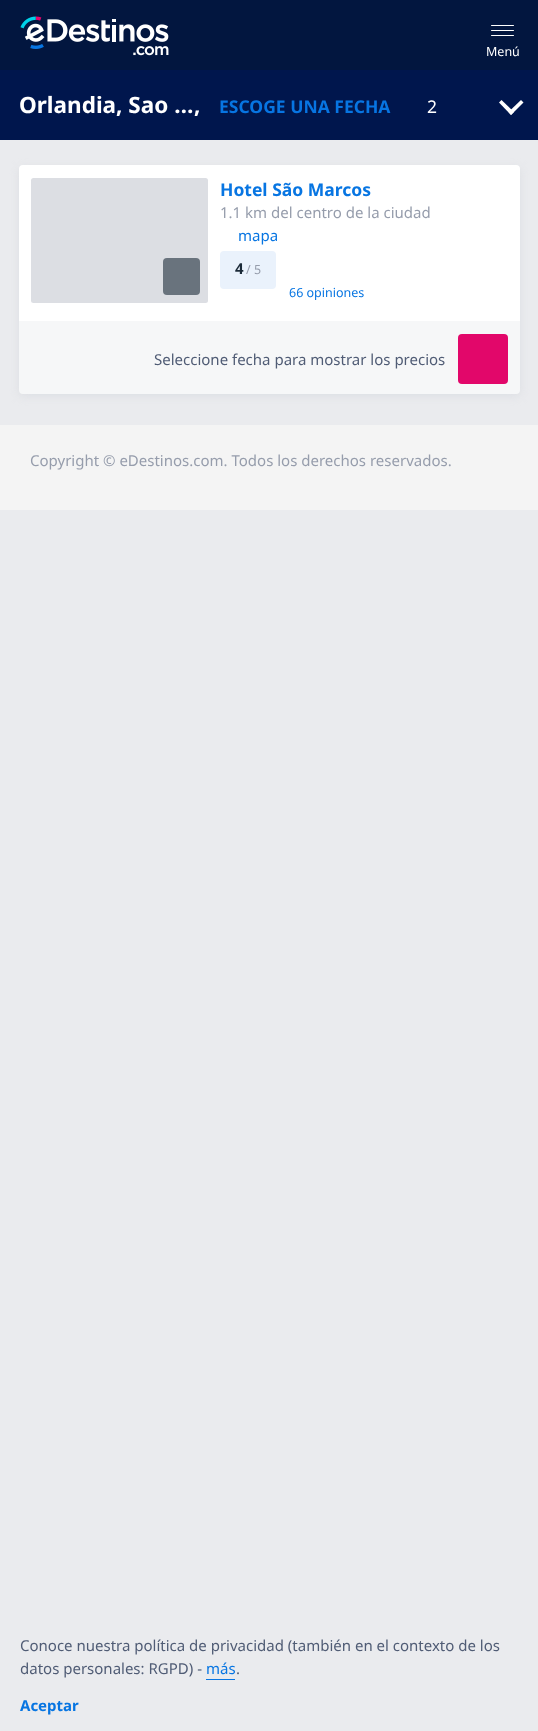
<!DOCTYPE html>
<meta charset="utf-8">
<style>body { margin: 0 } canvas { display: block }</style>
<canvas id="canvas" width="538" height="1731"></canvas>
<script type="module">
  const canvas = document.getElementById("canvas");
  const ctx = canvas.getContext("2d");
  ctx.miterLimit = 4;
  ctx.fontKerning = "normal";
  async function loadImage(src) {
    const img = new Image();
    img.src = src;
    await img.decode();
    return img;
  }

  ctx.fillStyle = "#eaebee";
  ctx.fillRect(0, 0, 538, 1731);
  ctx.fillStyle = "#02163f";
  ctx.fillRect(0, 0, 538, 70);
  ctx.drawImage(await loadImage("img1.png"), 20, 16, 149, 40);
  ctx.fillStyle = "#ffffff";
  ctx.beginPath();
  ctx.roundRect(491, 25, 23, 1, 0.5);
  ctx.fill();
  ctx.beginPath();
  ctx.roundRect(491, 30, 23, 1, 0.5);
  ctx.fill();
  ctx.beginPath();
  ctx.roundRect(491, 35, 23, 1, 0.5);
  ctx.fill();
  ctx.font = "12.5px Noto Sans";
  ctx.fillText("Menú", 486, 56);
  ctx.fillStyle = "#00164d";
  ctx.fillRect(0, 70, 538, 70);
  ctx.font = "bold 22.5px Noto Sans";
  ctx.fillStyle = "#ffffff";
  ctx.fillText("Orlandia, Sao …", 19, 113);
  ctx.fillText(",", 194, 113);
  ctx.font = "bold 17.5px Noto Sans";
  ctx.fillStyle = "#0775e2";
  ctx.fillText("ESCOGE UNA FECHA", 219, 113);
  ctx.font = "17.5px Noto Sans";
  ctx.fillStyle = "#ffffff";
  ctx.fillText("2", 427, 113);
  ctx.beginPath();
  ctx.moveTo(508.5, 112);
  ctx.lineTo(521, 100);
  ctx.lineTo(523.5, 102.5);
  ctx.lineTo(511, 115);
  ctx.closePath();
  ctx.fill();
  ctx.beginPath();
  ctx.moveTo(499, 102.5);
  ctx.lineTo(501.5, 100);
  ctx.lineTo(514, 112);
  ctx.lineTo(511, 115);
  ctx.closePath();
  ctx.fill();
  ctx.fillStyle = "#dcdee3";
  ctx.filter = "blur(4.5px)";
  ctx.beginPath();
  ctx.roundRect(19, 168, 501, 228, 4);
  ctx.fill();
  ctx.filter = "none";
  ctx.fillStyle = "#ffffff";
  ctx.beginPath();
  ctx.roundRect(19, 165, 501, 156, [4, 4, 0, 0]);
  ctx.fill();
  ctx.fillStyle = "#dcdee3";
  ctx.beginPath();
  ctx.roundRect(31, 178, 177, 125, 2.5);
  ctx.fill();
  ctx.fillStyle = "#69737d";
  ctx.beginPath();
  ctx.roundRect(163, 258, 37, 37, 4);
  ctx.fill();
  ctx.font = "bold 17.5px Noto Sans";
  ctx.fillStyle = "#0775e2";
  ctx.fillText("Hotel São Marcos", 220, 196);
  ctx.font = "15px Noto Sans";
  ctx.fillStyle = "#969dac";
  ctx.fillText("1.1 km del centro de la ciudad", 220, 218);
  ctx.fillStyle = "#0775e2";
  ctx.fillText("mapa", 238, 241);
  ctx.fillStyle = "#eaf2fc";
  ctx.beginPath();
  ctx.roundRect(220, 251, 56, 38, 4);
  ctx.fill();
  ctx.font = "bold 15px Noto Sans";
  ctx.fillStyle = "#1c2b39";
  ctx.fillText("4", 235, 274);
  ctx.font = "12.5px Noto Sans";
  ctx.fillStyle = "#969dac";
  ctx.fillText("/ 5", 246, 274);
  ctx.fillStyle = "#0775e2";
  ctx.fillText("66 opiniones", 289, 297);
  ctx.fillStyle = "#f6f7f8";
  ctx.beginPath();
  ctx.roundRect(19, 321, 501, 73, [0, 0, 4, 4]);
  ctx.fill();
  ctx.font = "15px Noto Sans";
  ctx.fillStyle = "#505c75";
  ctx.fillText("Seleccione fecha para mostrar los precios", 154, 365);
  ctx.fillStyle = "#e2076a";
  ctx.beginPath();
  ctx.roundRect(458, 334, 50, 50, 4);
  ctx.fill();
  ctx.fillStyle = "#f4f4f4";
  ctx.fillRect(0, 425, 538, 85);
  ctx.fillStyle = "#969dac";
  ctx.fillText("Copyright © eDestinos.com. Todos los derechos reservados.", 30, 466);
  ctx.fillStyle = "#505c75";
  ctx.fillText("Conoce nuestra política de privacidad (también en el contexto de los", 20, 1651);
  ctx.fillText("datos personales: RGPD) -", 20, 1674);
  ctx.fillStyle = "#0775e2";
  ctx.fillText("más", 206, 1674);
  ctx.fillRect(206, 1679, 29, 1);
  ctx.fillStyle = "#505c75";
  ctx.fillText(".", 236, 1674);
  ctx.font = "bold 15px Noto Sans";
  ctx.fillStyle = "#0775e2";
  ctx.fillText("Aceptar", 20, 1711);
</script>
